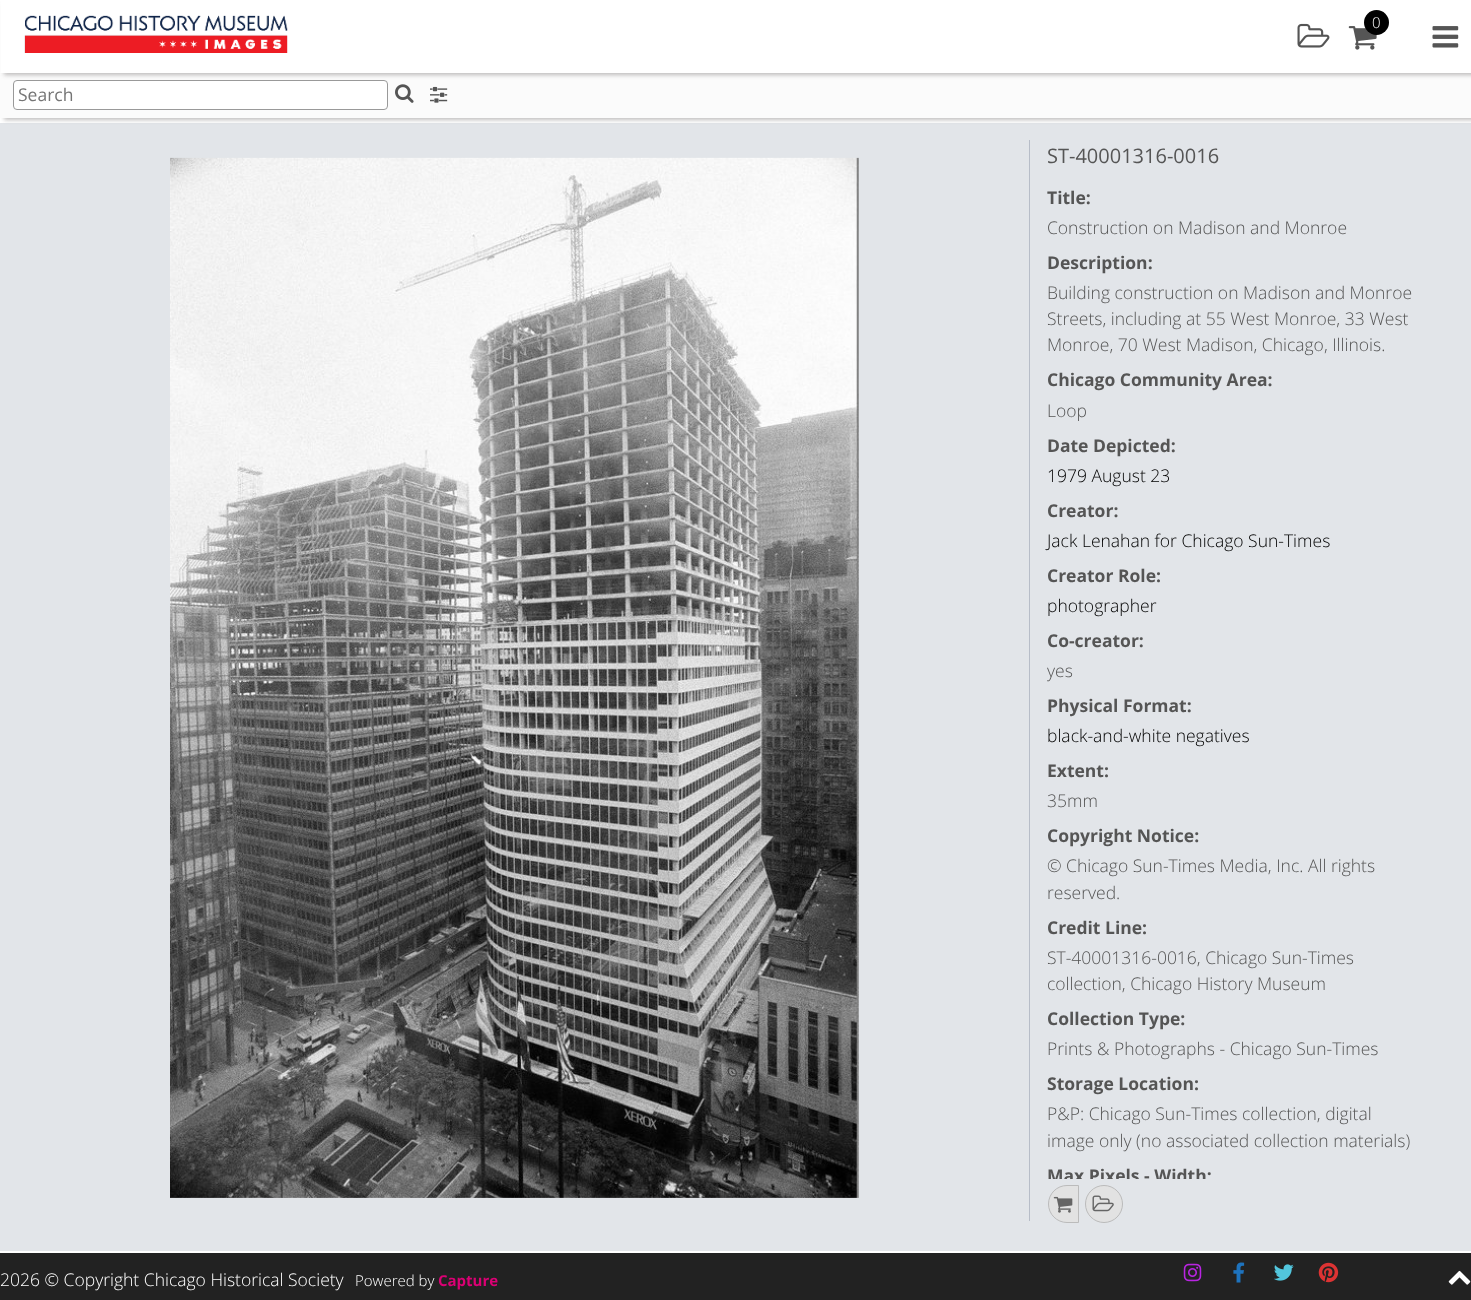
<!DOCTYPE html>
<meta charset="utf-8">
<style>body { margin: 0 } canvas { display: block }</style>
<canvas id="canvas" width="1471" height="1300"></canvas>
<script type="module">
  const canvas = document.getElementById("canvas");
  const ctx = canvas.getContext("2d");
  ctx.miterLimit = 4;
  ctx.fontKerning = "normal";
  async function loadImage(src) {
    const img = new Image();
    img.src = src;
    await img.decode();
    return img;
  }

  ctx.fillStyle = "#ffffff";
  ctx.fillRect(0, 0, 1471, 1300);
  ctx.fillStyle = "#e2e5e9";
  ctx.fillRect(0, 123, 1471, 1128);
  ctx.fillStyle = "rgba(74, 69, 69, 0.35)";
  ctx.filter = "blur(2px)";
  ctx.beginPath();
  ctx.rect(4, 75, 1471, 45);
  ctx.fill();
  ctx.filter = "none";
  ctx.fillStyle = "#fbfbfb";
  ctx.fillRect(0, 73, 1471, 45);
  ctx.fillStyle = "#ffffff";
  ctx.beginPath();
  ctx.roundRect(13.5, 80.5, 374, 29, 3.5);
  ctx.fill();
  ctx.strokeStyle = "#999999";
  ctx.stroke();
  ctx.fillStyle = "rgba(74, 69, 69, 0.35)";
  ctx.filter = "blur(2px)";
  ctx.beginPath();
  ctx.rect(4, 3, 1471, 72);
  ctx.fill();
  ctx.filter = "none";
  ctx.fillStyle = "#ffffff";
  ctx.fillRect(1, 0, 1470, 73);
  ctx.drawImage(await loadImage("img1.png"), 24, 15, 264, 38);
  ctx.drawImage(await loadImage("img2.png"), 1297, 23, 33, 25);
  ctx.drawImage(await loadImage("img3.png"), 1348, 26, 29, 24);
  ctx.fillStyle = "#000000";
  ctx.beginPath();
  ctx.arc(1376.5, 22.5, 12.5, 0, Math.PI * 2);
  ctx.fill();
  ctx.font = "300 15px Open Sans";
  ctx.fillStyle = "#ffffff";
  ctx.fillText("0", 1372, 28);
  ctx.drawImage(await loadImage("img4.png"), 1432, 26, 27, 22);
  ctx.font = "17.5px Open Sans";
  ctx.fillStyle = "#757575";
  ctx.fillText("Search", 18, 101);
  ctx.drawImage(await loadImage("img5.png"), 395, 84, 19, 19);
  ctx.drawImage(await loadImage("img6.png"), 430, 86, 18, 17);
  ctx.fillStyle = "#b7bdc8";
  ctx.fillRect(1029, 140, 1, 1081);
  ctx.drawImage(await loadImage("img7.png"), 170, 157, 689, 1041);
  ctx.font = "20px Open Sans";
  ctx.fillStyle = "#555555";
  ctx.fillText("ST-40001316-0016", 1047, 163);
  ctx.font = "bold 17.5px Open Sans";
  ctx.fillText("Title:", 1047, 204);
  ctx.font = "300 17.5px Open Sans";
  ctx.fillText("Construction on Madison and Monroe", 1047, 234);
  ctx.font = "bold 17.5px Open Sans";
  ctx.fillText("Description:", 1047, 269);
  ctx.font = "300 17.5px Open Sans";
  ctx.fillText("Building construction on Madison and Monroe", 1047, 299);
  ctx.fillText("Streets, including at 55 West Monroe, 33 West", 1047, 325);
  ctx.fillText("Monroe, 70 West Madison, Chicago, Illinois.", 1047, 351);
  ctx.font = "bold 17.5px Open Sans";
  ctx.fillText("Chicago Community Area:", 1047, 386);
  ctx.font = "300 17.5px Open Sans";
  ctx.fillText("Loop", 1047, 417);
  ctx.font = "bold 17.5px Open Sans";
  ctx.fillText("Date Depicted:", 1047, 452);
  ctx.font = "300 17.5px Open Sans";
  ctx.fillStyle = "#000000";
  ctx.fillText("1979 August 23", 1047, 482);
  ctx.font = "bold 17.5px Open Sans";
  ctx.fillStyle = "#555555";
  ctx.fillText("Creator:", 1047, 517);
  ctx.font = "300 17.5px Open Sans";
  ctx.fillStyle = "#000000";
  ctx.fillText("Jack Lenahan for Chicago Sun-Times", 1047, 547);
  ctx.font = "bold 17.5px Open Sans";
  ctx.fillStyle = "#555555";
  ctx.fillText("Creator Role:", 1047, 582);
  ctx.font = "300 17.5px Open Sans";
  ctx.fillStyle = "#000000";
  ctx.fillText("photographer", 1047, 612);
  ctx.font = "bold 17.5px Open Sans";
  ctx.fillStyle = "#555555";
  ctx.fillText("Co-creator:", 1047, 647);
  ctx.font = "300 17.5px Open Sans";
  ctx.fillText("yes", 1047, 677);
  ctx.font = "bold 17.5px Open Sans";
  ctx.fillText("Physical Format:", 1047, 712);
  ctx.font = "300 17.5px Open Sans";
  ctx.fillStyle = "#000000";
  ctx.fillText("black-and-white negatives", 1047, 742);
  ctx.font = "bold 17.5px Open Sans";
  ctx.fillStyle = "#555555";
  ctx.fillText("Extent:", 1047, 777);
  ctx.font = "300 17.5px Open Sans";
  ctx.fillText("35mm", 1047, 807);
  ctx.font = "bold 17.5px Open Sans";
  ctx.fillText("Copyright Notice:", 1047, 842);
  ctx.font = "300 17.5px Open Sans";
  ctx.fillText("© Chicago Sun-Times Media, Inc. All rights", 1047, 872);
  ctx.fillText("reserved.", 1047, 899);
  ctx.font = "bold 17.5px Open Sans";
  ctx.fillText("Credit Line:", 1047, 934);
  ctx.font = "300 17.5px Open Sans";
  ctx.fillText("ST-40001316-0016, Chicago Sun-Times", 1047, 964);
  ctx.fillText("collection, Chicago History Museum", 1047, 990);
  ctx.font = "bold 17.5px Open Sans";
  ctx.fillText("Collection Type:", 1047, 1025);
  ctx.font = "300 17.5px Open Sans";
  ctx.fillText("Prints & Photographs - Chicago Sun-Times", 1047, 1055);
  ctx.font = "bold 17.5px Open Sans";
  ctx.fillText("Storage Location:", 1047, 1090);
  ctx.font = "300 17.5px Open Sans";
  ctx.fillText("P&P: Chicago Sun-Times collection, digital", 1047, 1120);
  ctx.fillText("image only (no associated collection materials)", 1047, 1147);
  ctx.save();
  ctx.beginPath();
  ctx.rect(1030, 123, 441, 1056);
  ctx.clip();
  ctx.font = "bold 17.5px Open Sans";
  ctx.fillText("Max Pixels - Width:", 1047, 1182);
  ctx.restore();
  ctx.fillStyle = "#e2e2e2";
  ctx.beginPath();
  ctx.roundRect(1048.5, 1185.5, 30, 37, [18.5, 0, 0, 18.5]);
  ctx.fill();
  ctx.strokeStyle = "#bbbbbb";
  ctx.stroke();
  ctx.drawImage(await loadImage("img8.png"), 1053, 1196, 20, 17);
  ctx.beginPath();
  ctx.arc(1104, 1204, 18.5, 0, Math.PI * 2);
  ctx.fill();
  ctx.stroke();
  ctx.drawImage(await loadImage("img9.png"), 1092, 1195, 22, 17);
  ctx.fillStyle = "#222222";
  ctx.fillRect(0, 1253, 1471, 47);
  ctx.fillStyle = "#ffffff";
  ctx.fillText("2026 © Copyright Chicago Historical Society", 0, 1286);
  ctx.font = "300 15px Open Sans";
  ctx.fillText("Powered by", 355, 1286);
  ctx.font = "bold 15px Open Sans";
  ctx.fillStyle = "#db0074";
  ctx.fillText("Capture", 438, 1286);
  ctx.drawImage(await loadImage("img10.png"), 1183, 1263, 19, 19);
  ctx.drawImage(await loadImage("img11.png"), 1233, 1262, 12, 21);
  ctx.drawImage(await loadImage("img12.png"), 1274, 1264, 20, 17);
  ctx.drawImage(await loadImage("img13.png"), 1318, 1262, 21, 21);
  ctx.drawImage(await loadImage("img14.png"), 1448, 1270, 23, 15);
</script>
